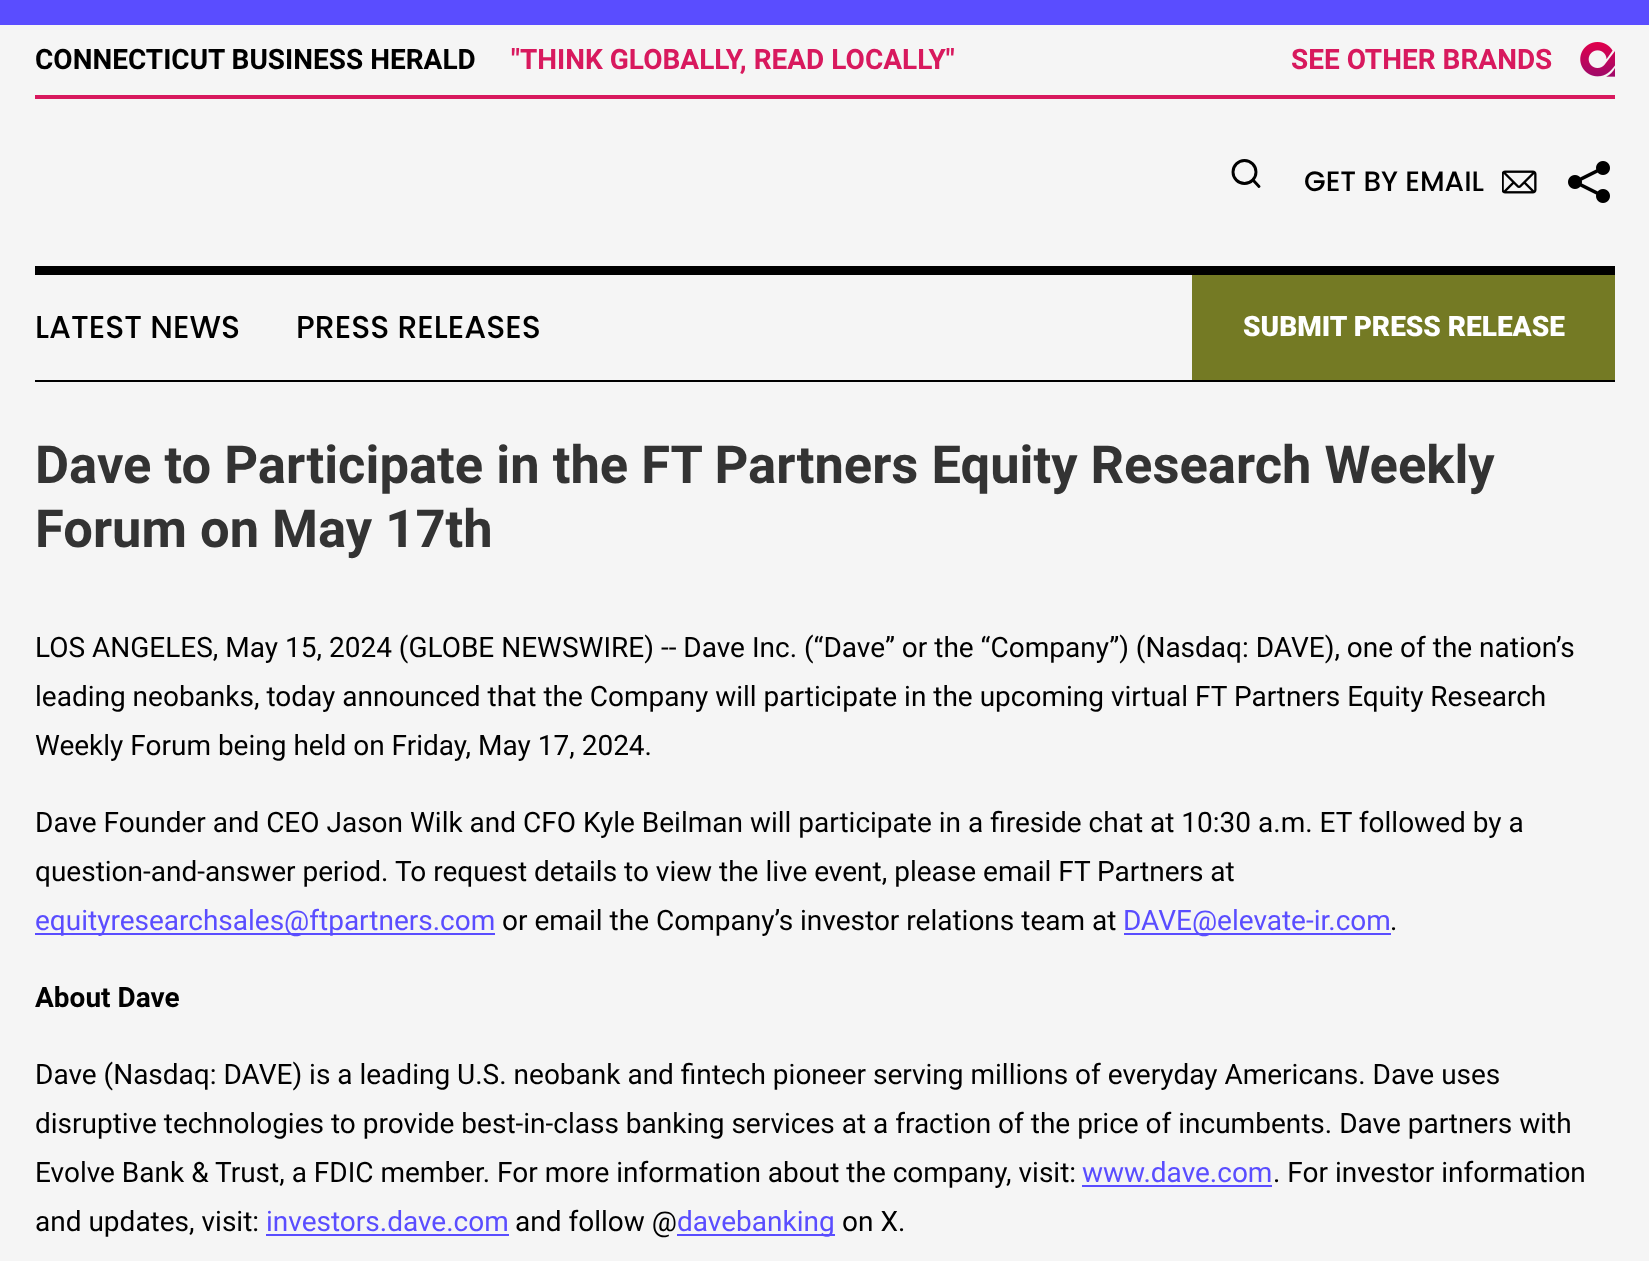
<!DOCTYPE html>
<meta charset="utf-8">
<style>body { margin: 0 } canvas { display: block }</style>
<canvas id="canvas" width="1649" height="1261"></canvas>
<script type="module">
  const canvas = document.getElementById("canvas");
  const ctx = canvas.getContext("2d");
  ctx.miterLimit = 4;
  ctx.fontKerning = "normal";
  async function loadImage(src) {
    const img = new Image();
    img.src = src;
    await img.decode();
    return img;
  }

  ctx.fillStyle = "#f5f5f5";
  ctx.fillRect(0, 0, 1649, 1261);
  ctx.fillStyle = "#5a4dff";
  ctx.fillRect(0, 0, 1649, 25);
  ctx.fillStyle = "#d8195e";
  ctx.fillRect(35, 95, 1580, 4);
  ctx.font = "bold 28px Roboto";
  ctx.fillStyle = "#000000";
  ctx.fillText("CONNECTICUT BUSINESS HERALD", 35, 69);
  ctx.fillStyle = "#d8195e";
  ctx.fillText("\"THINK GLOBALLY, READ LOCALLY\"", 511, 69);
  ctx.fillText("SEE OTHER BRANDS", 1291, 69);
  ctx.drawImage(await loadImage("img1.png"), 1580, 42, 35, 35);
  ctx.fillStyle = "#000000";
  ctx.fillRect(35, 380, 1580, 2);
  ctx.beginPath();
  ctx.arc(1244.5, 172, 11.5, 0, Math.PI * 2);
  ctx.strokeStyle = "#000000";
  ctx.lineWidth = 2.9;
  ctx.stroke();
  ctx.beginPath();
  ctx.moveTo(1259, 186.5);
  ctx.lineTo(1253, 180);
  ctx.lineCap = "round";
  ctx.lineJoin = "round";
  ctx.stroke();
  ctx.font = "500 28px Poppins";
  ctx.fillText("GET BY EMAIL", 1304, 191);
  ctx.drawImage(await loadImage("img2.png"), 1502, 170, 35, 24);
  ctx.drawImage(await loadImage("img3.png"), 1568, 161, 42, 42);
  ctx.fillRect(35, 266, 1580, 9);
  ctx.font = "500 31.5px Poppins";
  ctx.fillText("LATEST NEWS", 35, 338);
  ctx.fillText("PRESS RELEASES", 296, 338);
  ctx.fillStyle = "#747a24";
  ctx.fillRect(1192, 275, 423, 105);
  ctx.font = "900 28px Roboto";
  ctx.fillStyle = "#ffffff";
  ctx.fillText("SUBMIT PRESS RELEASE", 1243, 336);
  ctx.font = "bold 52.5px Roboto";
  ctx.fillStyle = "#333333";
  ctx.fillText("Dave to Participate in the FT Partners Equity Research Weekly", 35, 483);
  ctx.fillText("Forum on May 17th", 35, 547);
  ctx.font = "28px Roboto";
  ctx.fillStyle = "#000000";
  ctx.fillText("LOS ANGELES, May 15, 2024 (GLOBE NEWSWIRE) -- Dave Inc. (“Dave” or the “Company”) (Nasdaq: DAVE), one of the nation’s", 35, 657);
  ctx.fillText("leading neobanks, today announced that the Company will participate in the upcoming virtual FT Partners Equity Research", 35, 706);
  ctx.fillText("Weekly Forum being held on Friday, May 17, 2024.", 35, 755);
  ctx.fillText("Dave Founder and CEO Jason Wilk and CFO Kyle Beilman will participate in a fireside chat at 10:30 a.m. ET followed by a", 35, 832);
  ctx.fillText("question-and-answer period. To request details to view the live event, please email FT Partners at", 35, 881);
  ctx.fillStyle = "#5a4dff";
  ctx.fillRect(35, 933, 460, 2);
  ctx.fillText("equityresearchsales@ftpartners.com", 35, 930);
  ctx.fillStyle = "#000000";
  ctx.fillText("or email the Company’s investor relations team at", 502, 930);
  ctx.fillStyle = "#5a4dff";
  ctx.fillRect(1124, 933, 267, 2);
  ctx.fillText("DAVE@elevate-ir.com", 1123, 930);
  ctx.fillStyle = "#000000";
  ctx.fillText(".", 1390, 930);
  ctx.font = "bold 28px Roboto";
  ctx.fillText("About Dave", 35, 1007);
  ctx.font = "28px Roboto";
  ctx.fillText("Dave (Nasdaq: DAVE) is a leading U.S. neobank and fintech pioneer serving millions of everyday Americans. Dave uses", 35, 1084);
  ctx.fillText("disruptive technologies to provide best-in-class banking services at a fraction of the price of incumbents. Dave partners with", 35, 1133);
  ctx.fillText("Evolve Bank & Trust, a FDIC member. For more information about the company, visit:", 35, 1182);
  ctx.fillStyle = "#5a4dff";
  ctx.fillText("www.dave.com", 1082, 1182);
  ctx.fillRect(1082, 1185, 190, 2);
  ctx.fillStyle = "#000000";
  ctx.fillText(". For investor information", 1273, 1182);
  ctx.fillText("and updates, visit:", 35, 1231);
  ctx.fillStyle = "#5a4dff";
  ctx.fillText("investors.dave.com", 266, 1231);
  ctx.fillRect(266, 1234, 243, 2);
  ctx.fillStyle = "#000000";
  ctx.fillText("and follow @", 515, 1231);
  ctx.fillStyle = "#5a4dff";
  ctx.fillRect(677, 1234, 158, 2);
  ctx.fillText("davebanking", 677, 1231);
  ctx.fillStyle = "#000000";
  ctx.fillText("on X.", 842, 1231);
</script>
